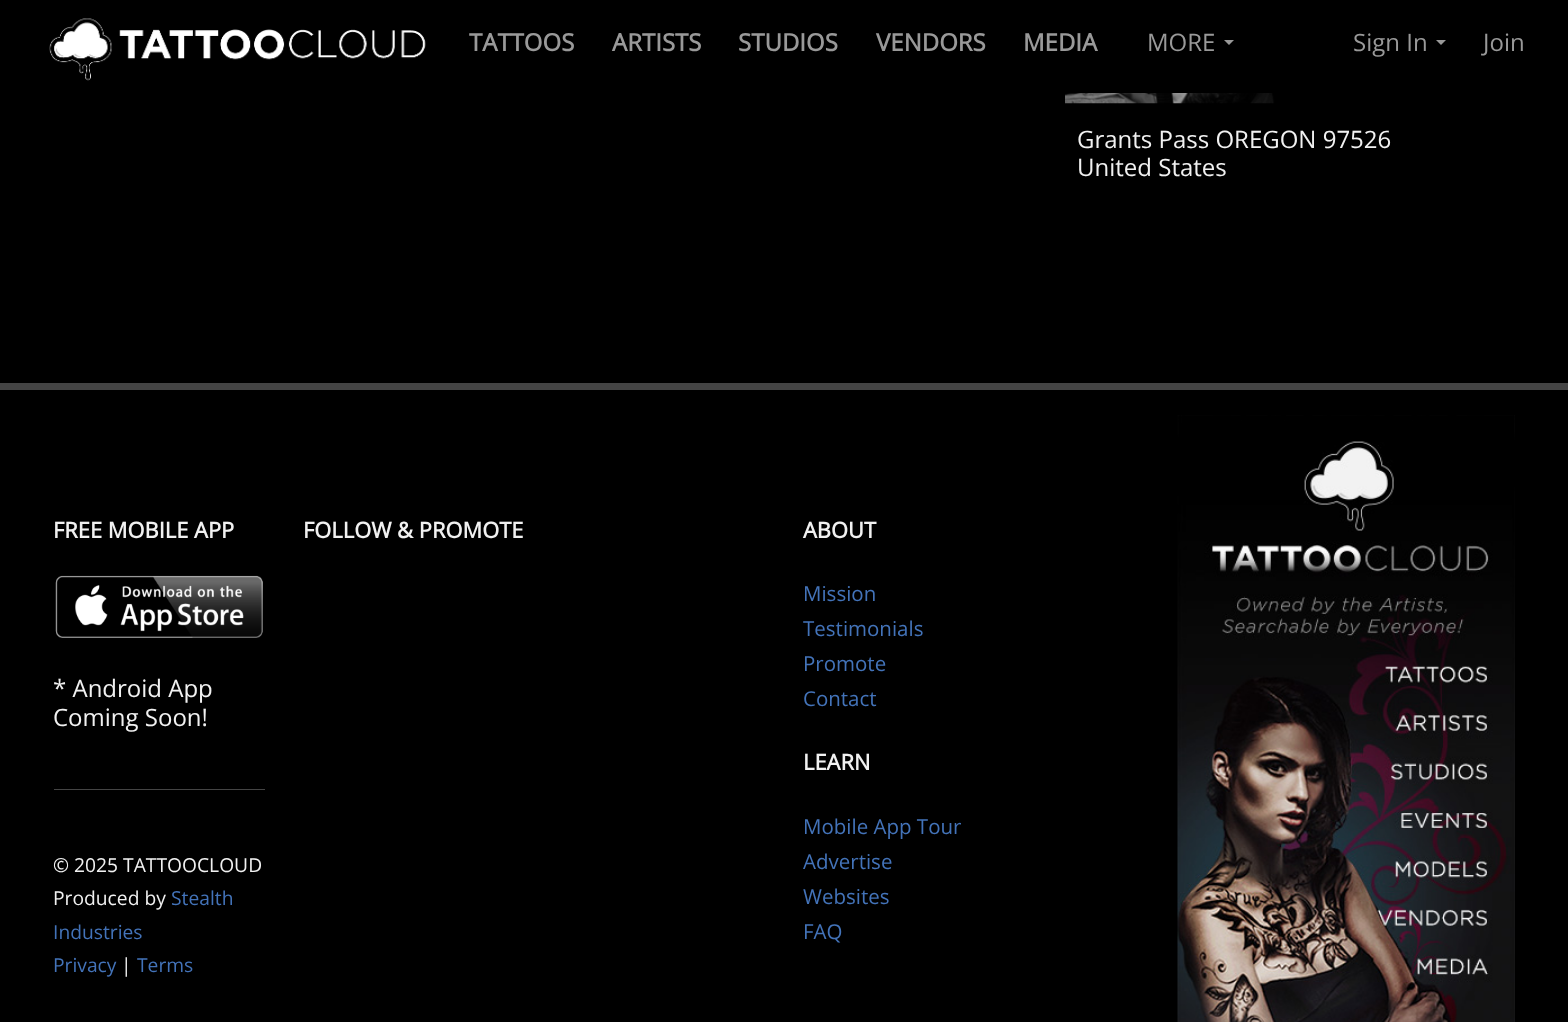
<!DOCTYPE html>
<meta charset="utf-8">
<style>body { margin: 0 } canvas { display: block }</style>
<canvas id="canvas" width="1568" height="1022"></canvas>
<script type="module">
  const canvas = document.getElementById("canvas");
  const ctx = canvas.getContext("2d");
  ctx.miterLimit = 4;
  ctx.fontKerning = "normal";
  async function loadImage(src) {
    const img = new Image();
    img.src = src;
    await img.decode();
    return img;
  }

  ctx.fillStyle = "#000000";
  ctx.fillRect(0, 0, 1568, 1022);
  ctx.drawImage(await loadImage("img1.png"), 49, 18, 377, 63);
  ctx.font = "bold 24px Open Sans";
  ctx.fillStyle = "#999999";
  ctx.fillText("TATTOOS", 469, 51);
  ctx.fillText("ARTISTS", 612, 51);
  ctx.fillText("STUDIOS", 738, 51);
  ctx.fillText("VENDORS", 876, 51);
  ctx.fillText("MEDIA", 1023, 51);
  ctx.font = "24px Open Sans";
  ctx.fillText("MORE", 1147, 51);
  ctx.beginPath();
  ctx.moveTo(1224, 40);
  ctx.lineTo(1234, 40);
  ctx.lineTo(1229, 45);
  ctx.closePath();
  ctx.fill();
  ctx.fillText("Sign In", 1353, 51);
  ctx.beginPath();
  ctx.moveTo(1436, 40);
  ctx.lineTo(1446, 40);
  ctx.lineTo(1441, 45);
  ctx.closePath();
  ctx.fill();
  ctx.fillText("Join", 1483, 51);
  ctx.drawImage(await loadImage("img2.png"), 1065, 93, 225, 11);
  ctx.fillStyle = "#f1f1f1";
  ctx.fillText("Grants Pass OREGON 97526", 1077, 148);
  ctx.fillText("United States", 1077, 176);
  ctx.fillStyle = "#444444";
  ctx.fillRect(0, 383, 1568, 7);
  ctx.font = "bold 21.9px Open Sans";
  ctx.fillStyle = "#f1f1f1";
  ctx.fillText("FREE MOBILE APP", 53, 538);
  ctx.drawImage(await loadImage("img3.png"), 55, 575, 208, 63);
  ctx.font = "24px Open Sans";
  ctx.fillText("* Android App", 53, 697);
  ctx.fillText("Coming Soon!", 53, 726);
  ctx.fillStyle = "#444444";
  ctx.fillRect(54, 789, 211, 1);
  ctx.font = "19.25px Open Sans";
  ctx.fillStyle = "#f1f1f1";
  ctx.fillText("© 2025 TATTOOCLOUD", 53, 872);
  ctx.fillText("Produced by", 53, 905);
  ctx.fillStyle = "#4373b9";
  ctx.fillText("Stealth", 171, 905);
  ctx.fillText("Industries", 53, 939);
  ctx.fillText("Privacy", 53, 972);
  ctx.fillStyle = "#f1f1f1";
  ctx.fillText("|", 121, 972);
  ctx.fillStyle = "#4373b9";
  ctx.fillText("Terms", 137, 972);
  ctx.font = "bold 21.9px Open Sans";
  ctx.fillStyle = "#f1f1f1";
  ctx.fillText("FOLLOW & PROMOTE", 303, 538);
  ctx.fillText("ABOUT", 803, 538);
  ctx.font = "20.5px Open Sans";
  ctx.fillStyle = "#4373b9";
  ctx.fillText("Mission", 803, 601);
  ctx.fillText("Testimonials", 803, 636);
  ctx.fillText("Promote", 803, 671);
  ctx.fillText("Contact", 803, 706);
  ctx.font = "bold 21.9px Open Sans";
  ctx.fillStyle = "#f1f1f1";
  ctx.fillText("LEARN", 803, 770);
  ctx.font = "20.5px Open Sans";
  ctx.fillStyle = "#4373b9";
  ctx.fillText("Mobile App Tour", 803, 834);
  ctx.fillText("Advertise", 803, 869);
  ctx.fillText("Websites", 803, 904);
  ctx.fillText("FAQ", 803, 939);
  ctx.drawImage(await loadImage("img4.png"), 1177, 415, 338, 607);
</script>
